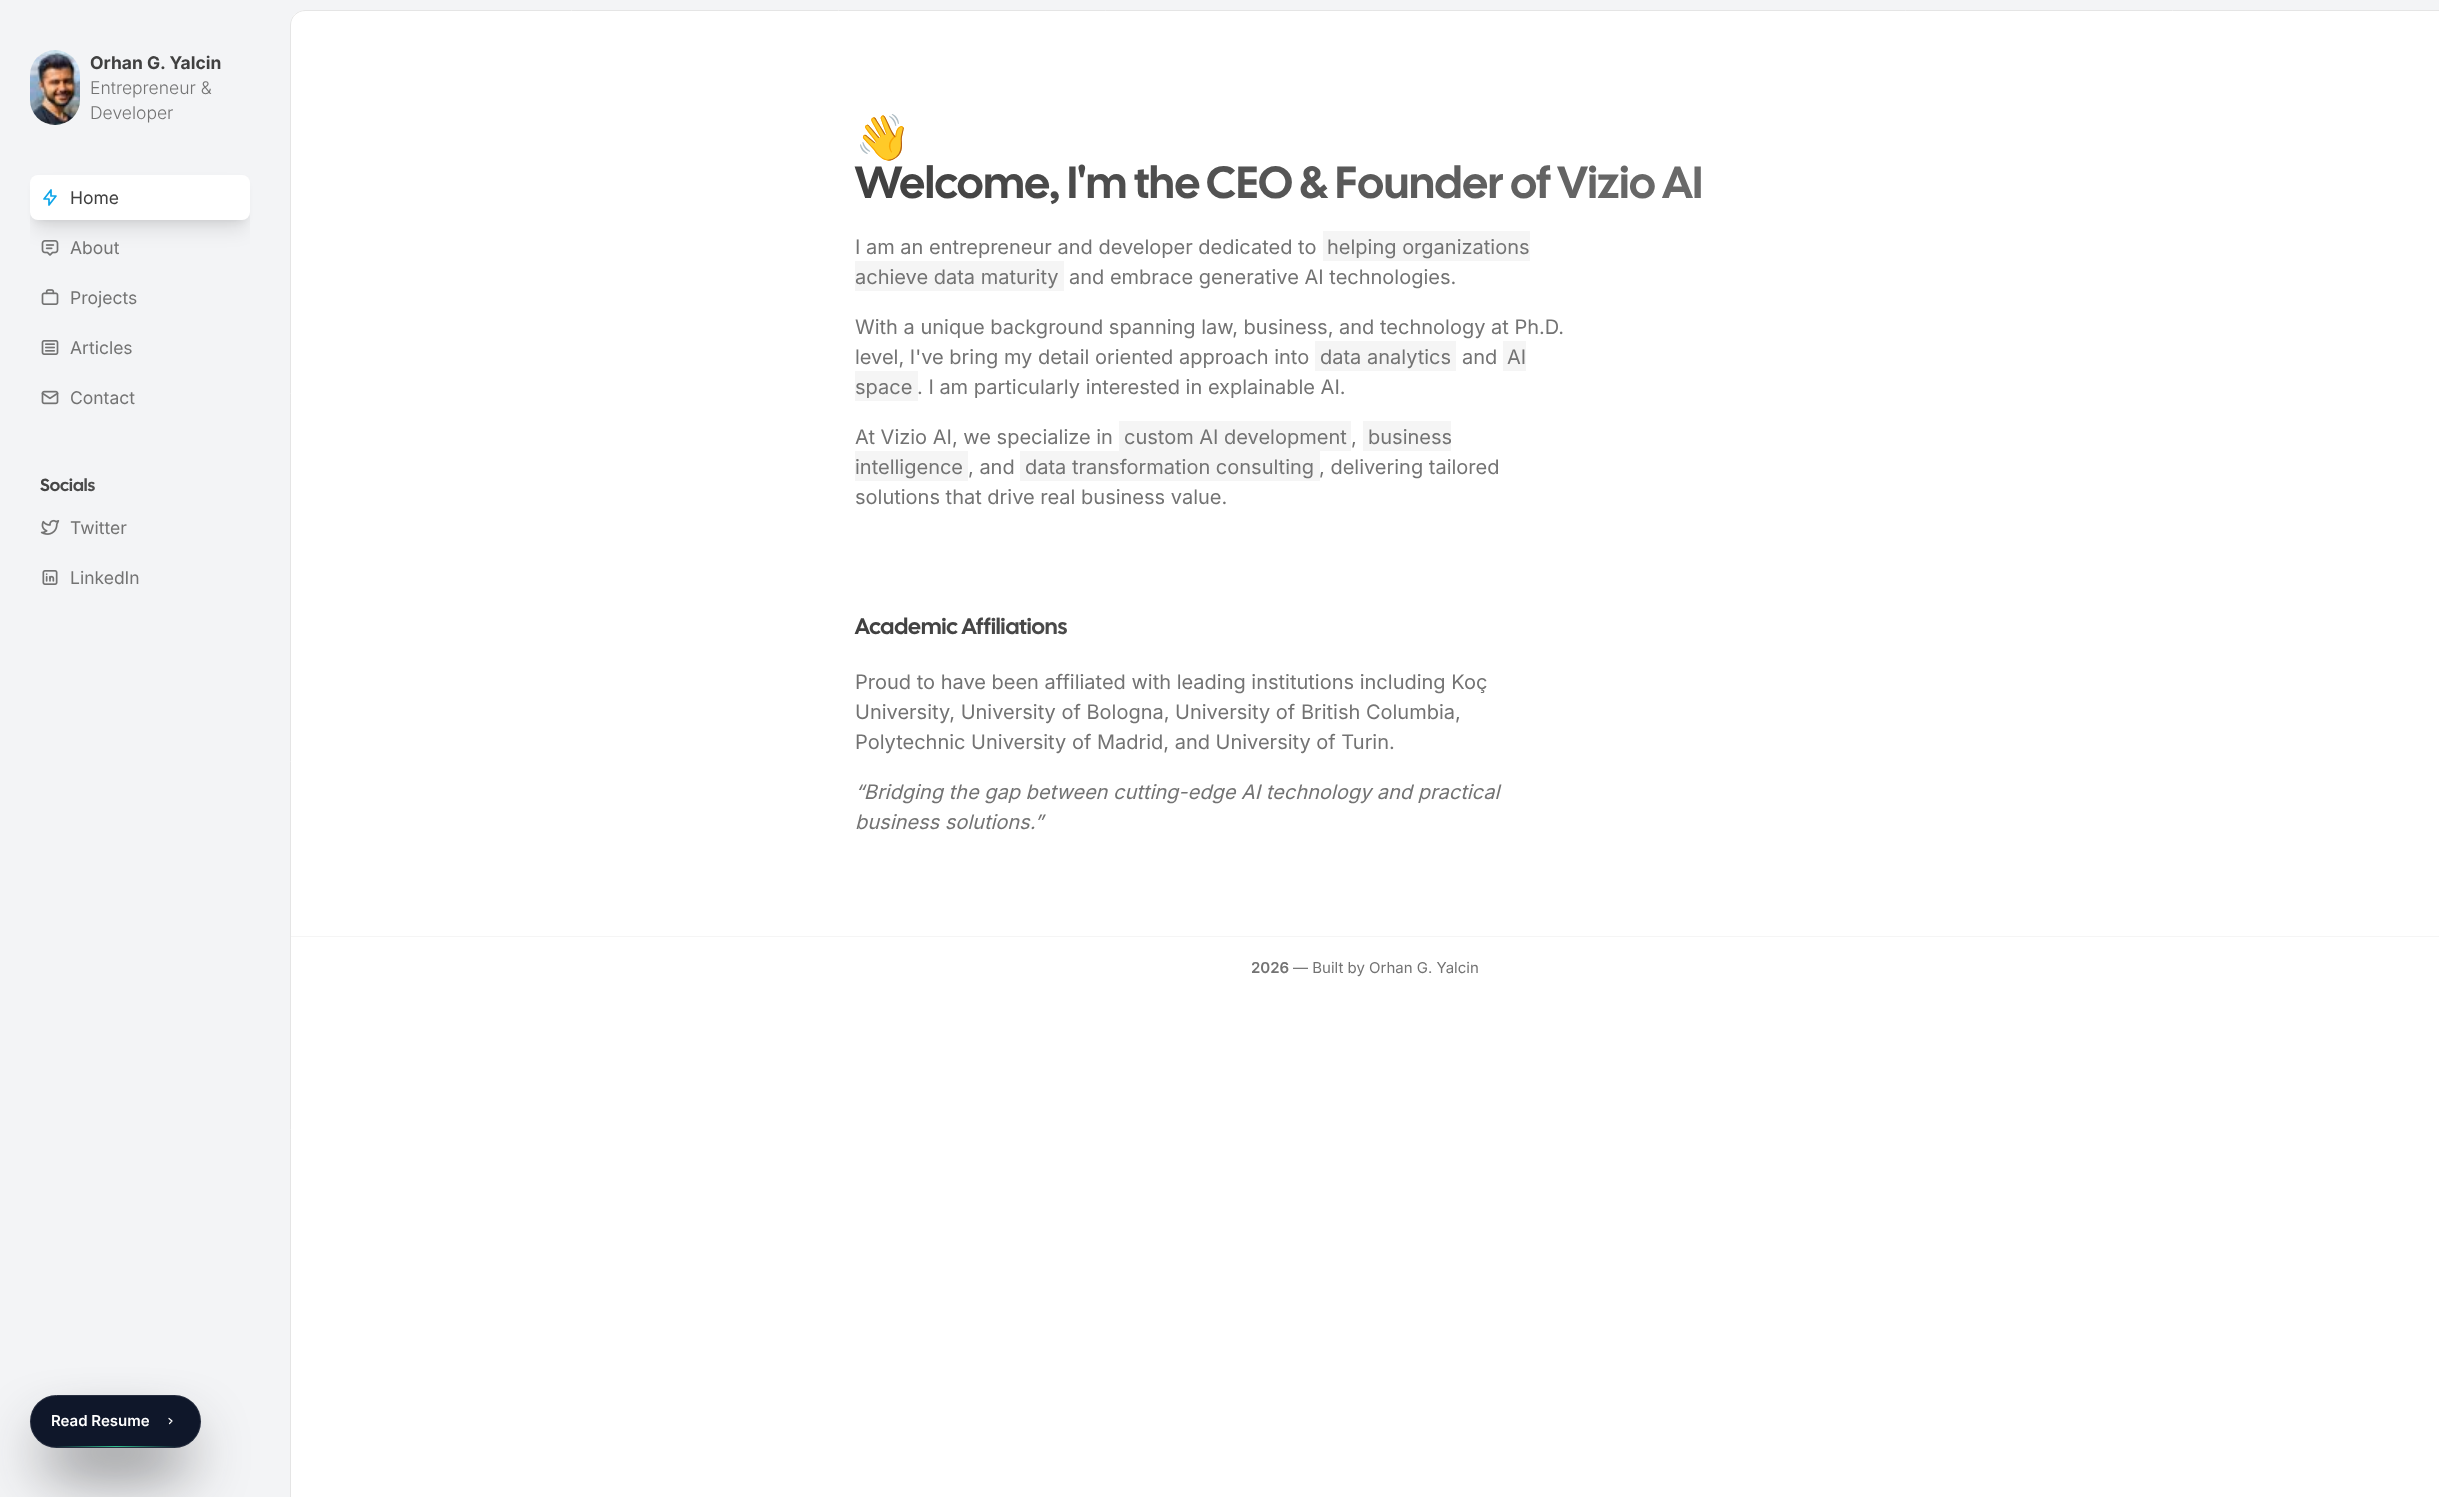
<!DOCTYPE html>
<meta charset="utf-8">
<style>body { margin: 0 } canvas { display: block }</style>
<canvas id="canvas" width="2439" height="1497"></canvas>
<script type="module">
  const canvas = document.getElementById("canvas");
  const ctx = canvas.getContext("2d");
  ctx.miterLimit = 4;
  ctx.fontKerning = "normal";
  async function loadImage(src) {
    const img = new Image();
    img.src = src;
    await img.decode();
    return img;
  }
  let gradient;

  ctx.fillStyle = "#f3f4f6";
  ctx.fillRect(0, 0, 2439, 1497);
  ctx.drawImage(await loadImage("img1.png"), 30, 50, 50, 75);
  ctx.font = "bold 17.5px Inter";
  ctx.fillStyle = "#404040";
  ctx.fillText("Orhan G. Yalcin", 90, 69);
  ctx.font = "300 17.5px Inter";
  ctx.fillStyle = "#737373";
  ctx.fillText("Entrepreneur &", 90, 94);
  ctx.fillText("Developer", 90, 119);
  ctx.fillStyle = "rgba(0, 0, 0, 0.1)";
  ctx.filter = "blur(4px)";
  ctx.beginPath();
  ctx.roundRect(35, 185, 210, 35, 2.5);
  ctx.fill();
  ctx.filter = "none";
  ctx.save();
  ctx.beginPath();
  ctx.rect(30, 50, 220, 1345);
  ctx.clip();
  ctx.filter = "blur(9.5px)";
  ctx.beginPath();
  ctx.roundRect(34, 191, 212, 38, 4);
  ctx.fill();
  ctx.filter = "none";
  ctx.restore();
  ctx.fillStyle = "#ffffff";
  ctx.beginPath();
  ctx.roundRect(30, 175, 220, 45, 8);
  ctx.fill();
  ctx.beginPath();
  ctx.moveTo(51, 190);
  ctx.lineTo(51, 196);
  ctx.lineTo(56, 196);
  ctx.lineTo(49, 205);
  ctx.lineTo(49, 199);
  ctx.lineTo(44, 199);
  ctx.lineTo(51, 190);
  ctx.strokeStyle = "#0ea5e9";
  ctx.lineWidth = 1.7;
  ctx.lineCap = "round";
  ctx.lineJoin = "round";
  ctx.stroke();
  ctx.font = "17.5px Inter";
  ctx.fillStyle = "#404040";
  ctx.fillText("Home", 70, 204);
  ctx.drawImage(await loadImage("img2.png"), 41, 240, 18, 16);
  ctx.fillStyle = "#737373";
  ctx.fillText("About", 70, 254);
  ctx.drawImage(await loadImage("img3.png"), 41, 289, 18, 16);
  ctx.fillText("Projects", 70, 304);
  ctx.drawImage(await loadImage("img4.png"), 41, 340, 18, 15);
  ctx.fillText("Articles", 70, 354);
  ctx.drawImage(await loadImage("img5.png"), 41, 390, 18, 15);
  ctx.fillText("Contact", 70, 404);
  ctx.font = "600 17.5px Cal Sans";
  gradient = ctx.createLinearGradient(30, 463, 250, 463);
  gradient.addColorStop(0, "#404040");
  gradient.addColorStop(1, "#737373");
  ctx.fillStyle = gradient;
  ctx.fillText("Socials", 40, 491);
  ctx.drawImage(await loadImage("img6.png"), 40, 519, 20, 16);
  ctx.font = "17.5px Inter";
  ctx.fillStyle = "#737373";
  ctx.fillText("Twitter", 70, 534);
  ctx.drawImage(await loadImage("img7.png"), 42, 570, 16, 15);
  ctx.fillText("LinkedIn", 70, 584);
  ctx.fillStyle = "#18181b";
  ctx.filter = "blur(31px)";
  ctx.beginPath();
  ctx.roundRect(45, 1441, 141, 23, 11.5);
  ctx.fill();
  ctx.filter = "none";
  ctx.fillStyle = "#0f172a";
  ctx.beginPath();
  ctx.roundRect(30, 1395, 171, 53, 26.5);
  ctx.fill();
  gradient = ctx.createLinearGradient(53, 1447, 179, 1447);
  gradient.addColorStop(0, "#0f172a");
  gradient.addColorStop(0.5, "#30c08e");
  gradient.addColorStop(1, "#0f172a");
  ctx.fillStyle = gradient;
  ctx.fillRect(53, 1446, 126, 1);
  ctx.beginPath();
  ctx.roundRect(30.5, 1395.5, 170, 52, 26);
  ctx.strokeStyle = "rgba(255, 255, 255, 0.1)";
  ctx.lineWidth = 1;
  ctx.lineJoin = "miter";
  ctx.stroke();
  ctx.font = "600 15px Inter";
  ctx.fillStyle = "#ffffff";
  ctx.fillText("Read Resume", 51, 1426);
  ctx.beginPath();
  ctx.moveTo(169, 1418.5);
  ctx.lineTo(172, 1421);
  ctx.lineTo(169.5, 1423.5);
  ctx.strokeStyle = "#ffffff";
  ctx.lineWidth = 1.2;
  ctx.lineJoin = "round";
  ctx.stroke();
  ctx.beginPath();
  ctx.moveTo(305, 10);
  ctx.lineTo(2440, 10);
  ctx.lineTo(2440, 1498);
  ctx.lineTo(290, 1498);
  ctx.lineTo(290, 25);
  ctx.bezierCurveTo(290, 16.5, 296.5, 10, 305, 10);
  ctx.closePath();
  ctx.fill();
  ctx.beginPath();
  ctx.moveTo(305, 10.5);
  ctx.lineTo(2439.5, 10.5);
  ctx.lineTo(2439.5, 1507.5);
  ctx.lineTo(290.5, 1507.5);
  ctx.lineTo(290.5, 25);
  ctx.bezierCurveTo(290.5, 17, 297, 10.5, 305, 10.5);
  ctx.closePath();
  ctx.strokeStyle = "#e5e5e5";
  ctx.lineWidth = 1;
  ctx.lineJoin = "miter";
  ctx.stroke();
  ctx.font = "45px Noto Color Emoji";
  ctx.fillStyle = "#000000";
  ctx.fillText("👋", 855, 153);
  ctx.font = "600 45px Cal Sans";
  gradient = ctx.createLinearGradient(855, 186, 1875, 186);
  gradient.addColorStop(0, "#404040");
  gradient.addColorStop(1, "#737373");
  ctx.fillStyle = gradient;
  ctx.fillText("Welcome, I'm the CEO & Founder of Vizio AI", 855, 198);
  ctx.font = "20px Inter";
  ctx.fillStyle = "#737373";
  ctx.fillText("I am an entrepreneur and developer dedicated to", 855, 254);
  ctx.fillStyle = "#f5f5f5";
  ctx.fillRect(1323, 231, 207, 30);
  ctx.fillStyle = "#737373";
  ctx.fillText("helping organizations", 1327, 254);
  ctx.fillStyle = "#f5f5f5";
  ctx.fillRect(855, 261, 209, 30);
  ctx.fillStyle = "#737373";
  ctx.fillText("achieve data maturity", 855, 284);
  ctx.fillText("and embrace generative AI technologies.", 1069, 284);
  ctx.fillText("With a unique background spanning law, business, and technology at Ph.D.", 855, 334);
  ctx.fillText("level, I've bring my detail oriented approach into", 855, 364);
  ctx.fillStyle = "#f5f5f5";
  ctx.fillRect(1315, 341, 141, 30);
  ctx.fillStyle = "#737373";
  ctx.fillText("data analytics", 1320, 364);
  ctx.fillText("and", 1462, 364);
  ctx.fillStyle = "#f5f5f5";
  ctx.fillRect(1503, 341, 23, 30);
  ctx.fillStyle = "#737373";
  ctx.fillText("AI", 1507, 364);
  ctx.fillStyle = "#f5f5f5";
  ctx.fillRect(855, 371, 63, 30);
  ctx.fillStyle = "#737373";
  ctx.fillText("space", 855, 394);
  ctx.fillText(". I am particularly interested in explainable AI.", 917, 394);
  ctx.fillText("At Vizio AI, we specialize in", 855, 444);
  ctx.fillStyle = "#f5f5f5";
  ctx.fillRect(1119, 421, 232, 30);
  ctx.fillStyle = "#737373";
  ctx.fillText("custom AI development", 1124, 444);
  ctx.fillText(",", 1351, 444);
  ctx.fillStyle = "#f5f5f5";
  ctx.fillRect(1363, 421, 88, 30);
  ctx.fillStyle = "#737373";
  ctx.fillText("business", 1368, 444);
  ctx.fillStyle = "#f5f5f5";
  ctx.fillRect(855, 451, 113, 30);
  ctx.fillStyle = "#737373";
  ctx.fillText("intelligence", 855, 474);
  ctx.fillText(", and", 968, 474);
  ctx.fillStyle = "#f5f5f5";
  ctx.fillRect(1020, 451, 300, 30);
  ctx.fillStyle = "#737373";
  ctx.fillText("data transformation consulting", 1025, 474);
  ctx.fillText(", delivering tailored", 1319, 474);
  ctx.fillText("solutions that drive real business value.", 855, 504);
  ctx.font = "600 22.5px Cal Sans";
  gradient = ctx.createLinearGradient(855, 629, 1875, 629);
  gradient.addColorStop(0, "#404040");
  gradient.addColorStop(1, "#737373");
  ctx.fillStyle = gradient;
  ctx.fillText("Academic Affiliations", 855, 634);
  ctx.font = "20px Inter";
  ctx.fillStyle = "#737373";
  ctx.fillText("Proud to have been affiliated with leading institutions including Koç", 855, 689);
  ctx.fillText("University, University of Bologna, University of British Columbia,", 855, 719);
  ctx.fillText("Polytechnic University of Madrid, and University of Turin.", 855, 749);
  ctx.font = "italic 20px Inter";
  ctx.fillText("“Bridging the gap between cutting-edge AI technology and practical", 855, 799);
  ctx.fillText("business solutions.”", 855, 829);
  ctx.fillStyle = "#f5f5f5";
  ctx.fillRect(291, 936, 2148, 1);
  ctx.font = "600 15px Inter";
  ctx.fillStyle = "#737373";
  ctx.fillText("2026", 1251, 973);
  ctx.font = "15px Inter";
  ctx.fillText("— Built by Orhan G. Yalcin", 1293, 973);
</script>
